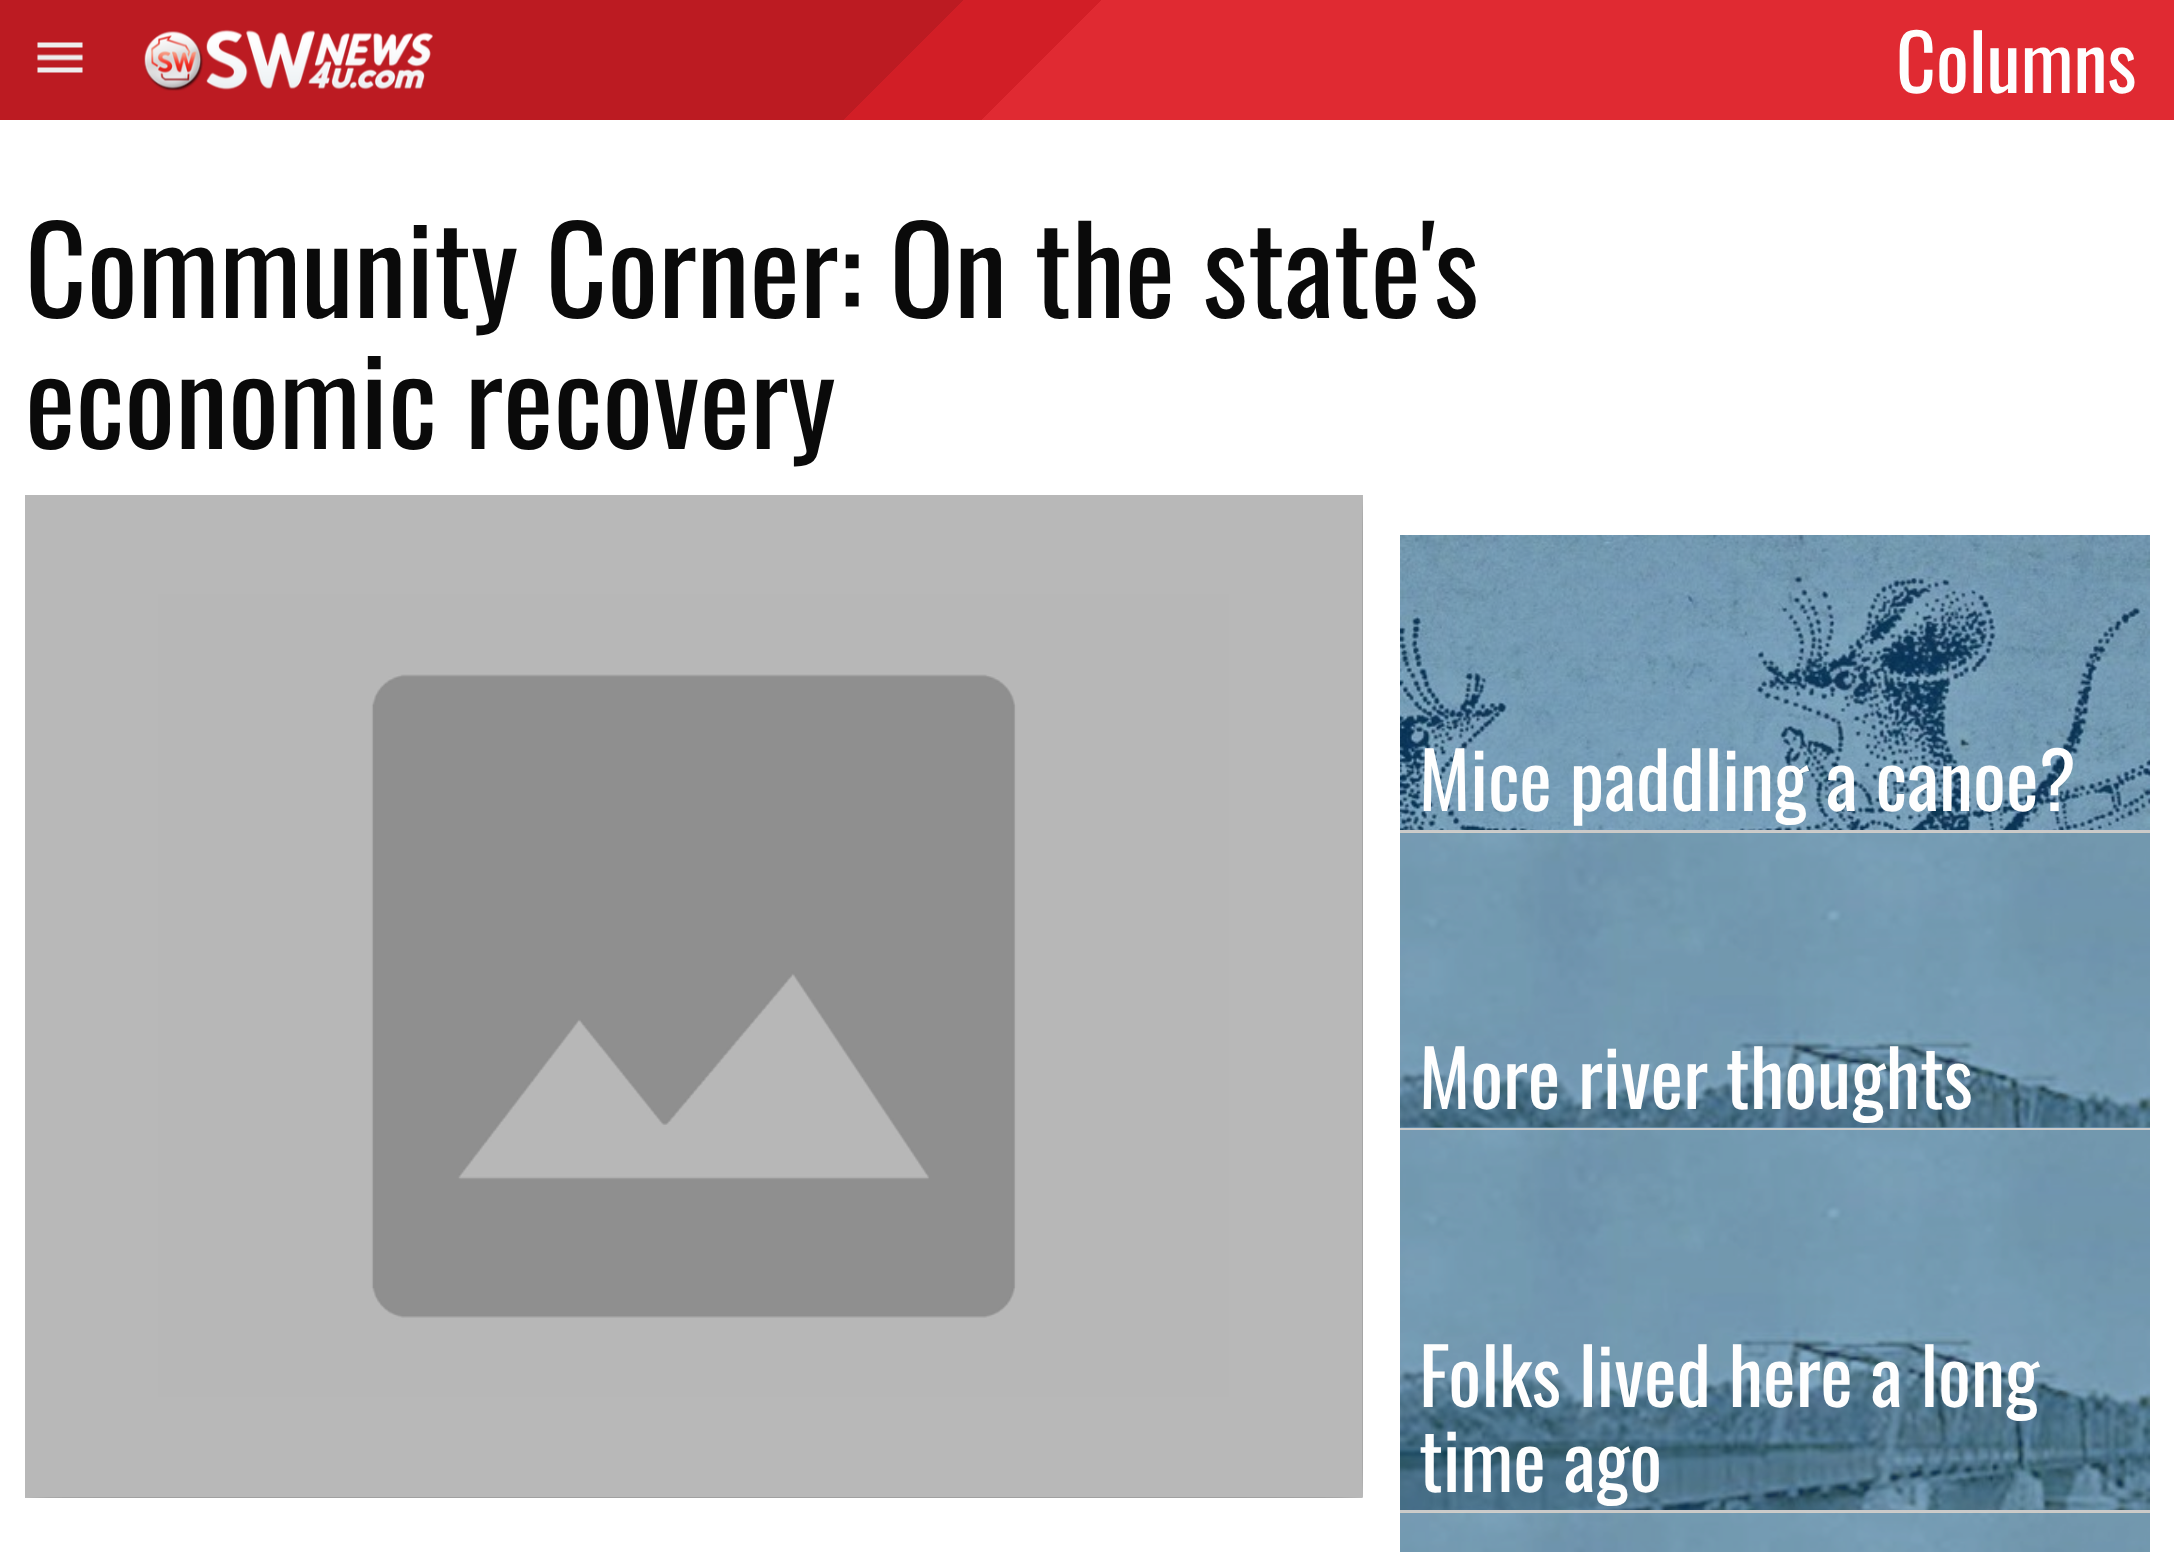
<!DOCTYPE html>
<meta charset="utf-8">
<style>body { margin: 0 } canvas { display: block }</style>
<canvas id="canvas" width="2174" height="1552"></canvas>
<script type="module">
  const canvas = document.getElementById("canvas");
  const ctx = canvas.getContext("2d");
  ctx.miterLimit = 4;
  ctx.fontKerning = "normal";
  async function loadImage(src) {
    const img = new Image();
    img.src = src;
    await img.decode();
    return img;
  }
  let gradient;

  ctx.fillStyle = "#ffffff";
  ctx.fillRect(0, 0, 2174, 1552);
  gradient = ctx.createLinearGradient(514, -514, 1661, 634);
  gradient.addColorStop(0.42, "#bc1b22");
  gradient.addColorStop(0.42, "#d21e26");
  gradient.addColorStop(0.48, "#d21e26");
  gradient.addColorStop(0.48, "#e02a32");
  ctx.fillStyle = gradient;
  ctx.fillRect(0, 0, 2174, 120);
  ctx.drawImage(await loadImage("img1.png"), 37, 42, 46, 31);
  ctx.drawImage(await loadImage("img2.png"), 144, 29, 289, 62);
  ctx.font = "77.5px Oswald";
  ctx.fillStyle = "#fefefe";
  ctx.fillText("Columns", 1896, 93);
  ctx.font = "120px Oswald";
  ctx.fillStyle = "#0a0a0a";
  ctx.fillText("Community Corner: On the state's", 25, 318);
  ctx.fillText("economic recovery", 25, 449);
  ctx.drawImage(await loadImage("img4.png"), 25, 495, 1338, 1003);
  ctx.fillStyle = "#79a4c5";
  ctx.fillRect(1401, 1127, 749, 1);
  ctx.fillStyle = "#cacaca";
  ctx.fillRect(1400, 830, 750, 3);
  ctx.drawImage(await loadImage("img5.png"), 1400, 535, 750, 295);
  ctx.fillRect(1400, 1128, 750, 2);
  ctx.save();
  ctx.beginPath();
  ctx.rect(1400, 833, 750, 295);
  ctx.clip();
  ctx.strokeStyle = "#638eaf";
  ctx.lineWidth = 3;
  ctx.strokeRect(1399.5, 831.5, 752, 625);
  ctx.restore();
  ctx.drawImage(await loadImage("img6.png"), 1400, 832, 750, 296);
  ctx.fillRect(1400, 1510, 750, 3);
  ctx.drawImage(await loadImage("img7.png"), 1400, 1130, 750, 380);
  ctx.drawImage(await loadImage("img8.png"), 1400, 1512, 750, 40);
  ctx.save();
  ctx.beginPath();
  ctx.rect(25, 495, 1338, 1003);
  ctx.clip();
  ctx.fillStyle = "rgba(0, 0, 0, 0.4)";
  ctx.filter = "blur(20px)";
  ctx.beginPath();
  ctx.rect(25, 495, 1338, 1003);
  ctx.fill();
  ctx.filter = "none";
  ctx.restore();
  ctx.drawImage(await loadImage("img3.png"), 25, 495, 1337, 1002);
  ctx.font = "77.5px Oswald";
  ctx.fillStyle = "#fefefe";
  ctx.fillText("Mice paddling a canoe?", 1419, 811);
  ctx.fillText("More river thoughts", 1419, 1109);
  ctx.fillText("Folks lived here a long", 1419, 1407);
  ctx.fillText("time ago", 1419, 1492);
</script>
